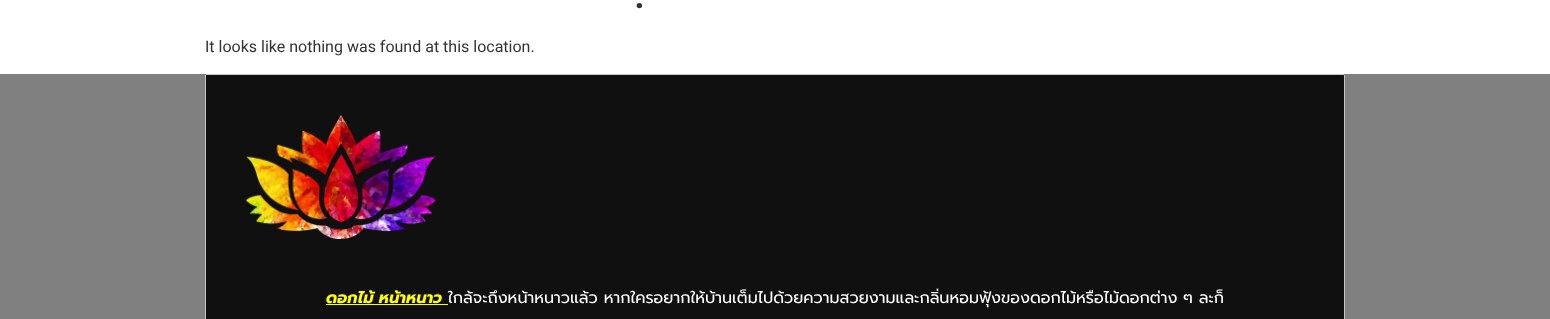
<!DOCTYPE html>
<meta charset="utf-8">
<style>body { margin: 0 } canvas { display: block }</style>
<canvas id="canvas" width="1550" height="319"></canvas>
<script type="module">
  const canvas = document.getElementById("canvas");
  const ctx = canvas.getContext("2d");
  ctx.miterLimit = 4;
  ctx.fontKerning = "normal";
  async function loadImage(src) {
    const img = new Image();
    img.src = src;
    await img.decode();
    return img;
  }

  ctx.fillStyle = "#ffffff";
  ctx.fillRect(0, 0, 1550, 319);
  ctx.font = "500 40px Roboto";
  ctx.fillStyle = "#333333";
  ctx.fillText(".", 634, 8);
  ctx.font = "16px Roboto";
  ctx.fillText("It looks like nothing was found at this location.", 205, 52);
  ctx.fillStyle = "#808080";
  ctx.fillRect(0, 74, 1550, 245);
  ctx.fillStyle = "#101010";
  ctx.beginPath();
  ctx.moveTo(207, 75);
  ctx.lineTo(1343, 75);
  ctx.bezierCurveTo(1344, 75, 1344, 75, 1344, 76);
  ctx.lineTo(1344, 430);
  ctx.bezierCurveTo(1344, 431, 1344, 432, 1343, 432);
  ctx.lineTo(207, 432);
  ctx.bezierCurveTo(206, 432, 206, 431, 206, 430);
  ctx.lineTo(206, 76);
  ctx.bezierCurveTo(206, 75, 206, 75, 207, 75);
  ctx.closePath();
  ctx.fill();
  ctx.fillStyle = "#c5c5c5";
  ctx.fillRect(206, 74, 1138, 1);
  ctx.fillRect(1344, 75, 1, 244);
  ctx.fillRect(205, 75, 1, 244);
  ctx.drawImage(await loadImage("img1.png"), 246, 115, 190, 124);
  ctx.font = "italic bold 16px Prompt";
  ctx.fillStyle = "#ffff00";
  ctx.fillText("ดอกไม้ หน้าหนาว", 326, 303);
  ctx.fillRect(326, 304, 122, 1);
  ctx.font = "16px Prompt";
  ctx.fillStyle = "#ffffff";
  ctx.fillText("ใกล้จะถึงหน้าหนาวแล้ว หากใครอยากให้บ้านเต็มไปด้วยความสวยงามและกลิ่นหอมฟุ้งของดอกไม้หรือไม้ดอกต่าง ๆ ละก็", 448, 303);
</script>
